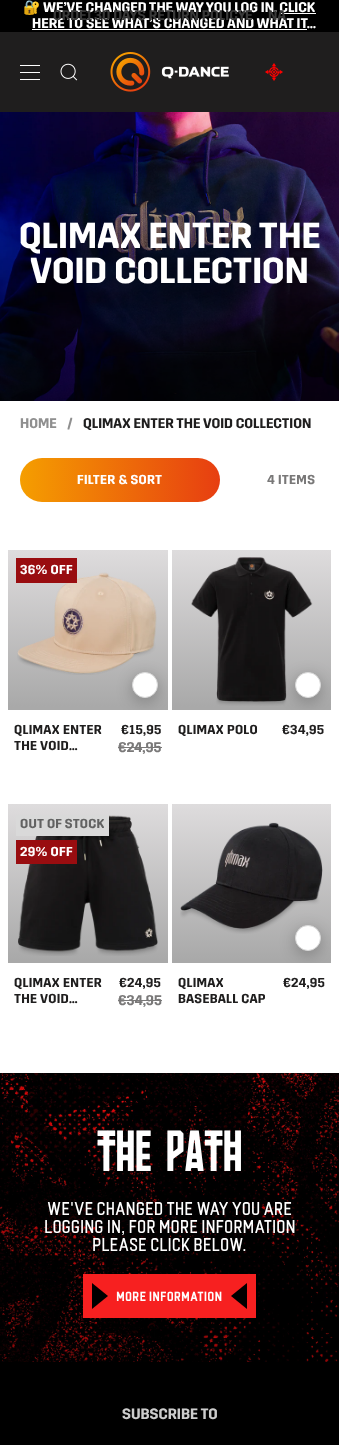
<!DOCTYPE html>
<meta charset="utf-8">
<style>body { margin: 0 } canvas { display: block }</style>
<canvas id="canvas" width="339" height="1445"></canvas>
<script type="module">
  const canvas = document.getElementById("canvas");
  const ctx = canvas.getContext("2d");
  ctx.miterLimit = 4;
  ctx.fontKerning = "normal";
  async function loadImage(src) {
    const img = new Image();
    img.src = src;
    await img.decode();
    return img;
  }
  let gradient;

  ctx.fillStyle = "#ffffff";
  ctx.fillRect(0, 0, 339, 1445);
  ctx.fillStyle = "#000000";
  ctx.fillRect(0, 0, 339, 32);
  ctx.font = "14px Noto Color Emoji";
  ctx.fillStyle = "#ffffff";
  ctx.fillText("🔐", 23, 12);
  ctx.font = "600 14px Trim";
  ctx.fillText("WE’VE CHANGED THE WAY YOU LOG IN. CLICK", 43, 12);
  ctx.fillText("HERE TO SEE WHAT’S CHANGED AND WHAT IT…", 32, 28);
  ctx.fillRect(280, 13, 36, 1);
  ctx.fillRect(32, 29, 275, 1);
  ctx.fillStyle = "#393939";
  ctx.fillText("ORDE", 53, 20);
  ctx.fillText("NA", 268, 20);
  ctx.fillText("1", 86, 20);
  ctx.fillText("E", 245, 20);
  ctx.fillText("30 DAYS RETURN POLICY", 94, 20);
  ctx.fillStyle = "#1f1e1e";
  ctx.fillRect(0, 32, 339, 80);
  ctx.fillStyle = "#ffffff";
  ctx.fillRect(20, 65, 20, 1);
  ctx.fillRect(20, 79, 20, 1);
  ctx.fillRect(20, 72, 20, 1);
  ctx.drawImage(await loadImage("img1.png"), 60, 63, 18, 18);
  ctx.drawImage(await loadImage("img2.png"), 110, 52, 119, 40);
  ctx.drawImage(await loadImage("img3.png"), 265, 63, 18, 18);
  ctx.drawImage(await loadImage("img4.png"), 0, 112, 339, 289);
  ctx.font = "600 36px Trim";
  ctx.fillText("QLIMAX ENTER THE", 19, 248);
  ctx.fillText("VOID COLLECTION", 30, 283);
  ctx.font = "600 14px Trim";
  ctx.fillStyle = "#8f8f8f";
  ctx.fillText("HOME", 20, 428);
  ctx.fillText("/", 67, 428);
  ctx.fillStyle = "#1f1e1e";
  ctx.fillText("QLIMAX ENTER THE VOID COLLECTION", 83, 428);
  gradient = ctx.createLinearGradient(20, 480, 220, 480);
  gradient.addColorStop(0, "#f59e00");
  gradient.addColorStop(1, "#e73e11");
  ctx.fillStyle = gradient;
  ctx.beginPath();
  ctx.roundRect(20, 458, 200, 44, 22);
  ctx.fill();
  ctx.letterSpacing = "0.3px";
  ctx.font = "600 13px Trim";
  ctx.fillStyle = "#ffffff";
  ctx.fillText("FILTER & SORT", 77, 484);
  ctx.fillStyle = "#797878";
  ctx.fillText("4 ITEMS", 267, 484);
  gradient = ctx.createLinearGradient(88, 550, 88, 710);
  gradient.addColorStop(0, "#dedcdd");
  gradient.addColorStop(0.98, "#a9a9a9");
  ctx.fillStyle = gradient;
  ctx.fillRect(8, 550, 160, 160);
  ctx.drawImage(await loadImage("img5.png"), 17, 572, 140, 103);
  ctx.fillStyle = "#990d10";
  ctx.fillRect(16, 558, 61, 25);
  ctx.fillStyle = "#ffffff";
  ctx.fillText("36% OFF", 20, 574);
  ctx.save();
  ctx.beginPath();
  ctx.rect(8, 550, 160, 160);
  ctx.clip();
  ctx.fillStyle = "rgba(0, 0, 0, 0.25)";
  ctx.filter = "blur(8px)";
  ctx.beginPath();
  ctx.roundRect(132, 676, 26, 26, 13);
  ctx.fill();
  ctx.filter = "none";
  ctx.restore();
  ctx.beginPath();
  ctx.arc(145, 685, 12.5, 0, Math.PI * 2);
  ctx.fill();
  ctx.strokeStyle = "#d9d9d9";
  ctx.stroke();
  ctx.fillStyle = "#1f1e1e";
  ctx.fillText("QLIMAX ENTER", 14, 734);
  ctx.fillText("THE VOID…", 14, 750);
  ctx.fillText("€15,95", 121, 734);
  ctx.letterSpacing = "0px";
  ctx.font = "600 14px Trim";
  ctx.fillStyle = "#797878";
  ctx.fillText("€24,95", 118, 752);
  ctx.fillRect(118, 747, 44, 1);
  gradient = ctx.createLinearGradient(252, 550, 252, 710);
  gradient.addColorStop(0, "#dedcdd");
  gradient.addColorStop(0.98, "#a9a9a9");
  ctx.fillStyle = gradient;
  ctx.fillRect(172, 550, 159, 160);
  ctx.drawImage(await loadImage("img6.png"), 191, 557, 122, 149);
  ctx.save();
  ctx.beginPath();
  ctx.rect(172, 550, 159, 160);
  ctx.clip();
  ctx.fillStyle = "rgba(0, 0, 0, 0.25)";
  ctx.filter = "blur(8px)";
  ctx.beginPath();
  ctx.roundRect(295, 676, 26, 26, 13);
  ctx.fill();
  ctx.filter = "none";
  ctx.restore();
  ctx.fillStyle = "#ffffff";
  ctx.beginPath();
  ctx.arc(308, 685, 12.5, 0, Math.PI * 2);
  ctx.fill();
  ctx.stroke();
  ctx.letterSpacing = "0.3px";
  ctx.font = "600 13px Trim";
  ctx.fillStyle = "#1f1e1e";
  ctx.fillText("QLIMAX POLO", 178, 734);
  ctx.fillText("€34,95", 282, 734);
  gradient = ctx.createLinearGradient(88, 804, 88, 963);
  gradient.addColorStop(0, "#dedcdd");
  gradient.addColorStop(0.98, "#a9a9a9");
  ctx.fillStyle = gradient;
  ctx.fillRect(8, 804, 160, 159);
  ctx.drawImage(await loadImage("img7.png"), 18, 815, 140, 141);
  ctx.fillStyle = "#d9d9d9";
  ctx.fillRect(16, 815, 93, 21);
  ctx.fillStyle = "#626262";
  ctx.fillText("OUT OF STOCK", 20, 828);
  ctx.fillStyle = "#990d10";
  ctx.fillRect(16, 840, 61, 24);
  ctx.fillStyle = "#ffffff";
  ctx.fillText("29% OFF", 20, 856);
  ctx.fillStyle = "#1f1e1e";
  ctx.fillText("QLIMAX ENTER", 14, 987);
  ctx.fillText("THE VOID…", 14, 1003);
  ctx.fillText("€24,95", 119, 987);
  ctx.letterSpacing = "0px";
  ctx.font = "600 14px Trim";
  ctx.fillStyle = "#797878";
  ctx.fillText("€34,95", 118, 1005);
  ctx.fillRect(118, 1000, 44, 1);
  gradient = ctx.createLinearGradient(252, 804, 252, 963);
  gradient.addColorStop(0, "#dedcdd");
  gradient.addColorStop(0.98, "#a9a9a9");
  ctx.fillStyle = gradient;
  ctx.fillRect(172, 804, 159, 159);
  ctx.drawImage(await loadImage("img8.png"), 180, 822, 143, 112);
  ctx.save();
  ctx.beginPath();
  ctx.rect(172, 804, 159, 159);
  ctx.clip();
  ctx.fillStyle = "rgba(0, 0, 0, 0.25)";
  ctx.filter = "blur(8px)";
  ctx.beginPath();
  ctx.roundRect(295, 929, 26, 26, 13);
  ctx.fill();
  ctx.filter = "none";
  ctx.restore();
  ctx.fillStyle = "#ffffff";
  ctx.beginPath();
  ctx.arc(308, 938, 12.5, 0, Math.PI * 2);
  ctx.fill();
  ctx.stroke();
  ctx.letterSpacing = "0.3px";
  ctx.font = "600 13px Trim";
  ctx.fillStyle = "#1f1e1e";
  ctx.fillText("QLIMAX", 178, 987);
  ctx.fillText("BASEBALL CAP", 178, 1003);
  ctx.fillText("€24,95", 283, 987);
  ctx.drawImage(await loadImage("img9.png"), 0, 1073, 339, 289);
  ctx.letterSpacing = "0px";
  ctx.font = "58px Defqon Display";
  ctx.fillStyle = "#ffffff";
  ctx.fillText("THE PATH", 97, 1171);
  ctx.font = "18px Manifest";
  ctx.fillText("WE'VE CHANGED THE WAY YOU ARE", 47, 1215);
  ctx.fillText("LOGGING IN, FOR MORE INFORMATION", 44, 1233);
  ctx.fillText("PLEASE CLICK BELOW.", 92, 1251);
  ctx.fillStyle = "#f72020";
  ctx.fillRect(83, 1274, 173, 44);
  ctx.fillStyle = "#000000";
  ctx.beginPath();
  ctx.moveTo(92, 1309);
  ctx.lineTo(92, 1283);
  ctx.lineTo(108, 1296);
  ctx.closePath();
  ctx.fill();
  ctx.letterSpacing = "0.1px";
  ctx.font = "bold 13px Manifest";
  ctx.fillStyle = "#ffffff";
  ctx.fillText("MORE INFORMATION", 116, 1301);
  ctx.fillStyle = "#000000";
  ctx.beginPath();
  ctx.moveTo(247, 1283);
  ctx.lineTo(247, 1309);
  ctx.lineTo(231, 1296);
  ctx.closePath();
  ctx.fill();
  ctx.fillRect(0, 1362, 339, 83);
  ctx.letterSpacing = "0px";
  ctx.font = "600 15px Trim";
  ctx.fillStyle = "#cccccc";
  ctx.fillText("SUBSCRIBE TO", 122, 1419);
</script>
